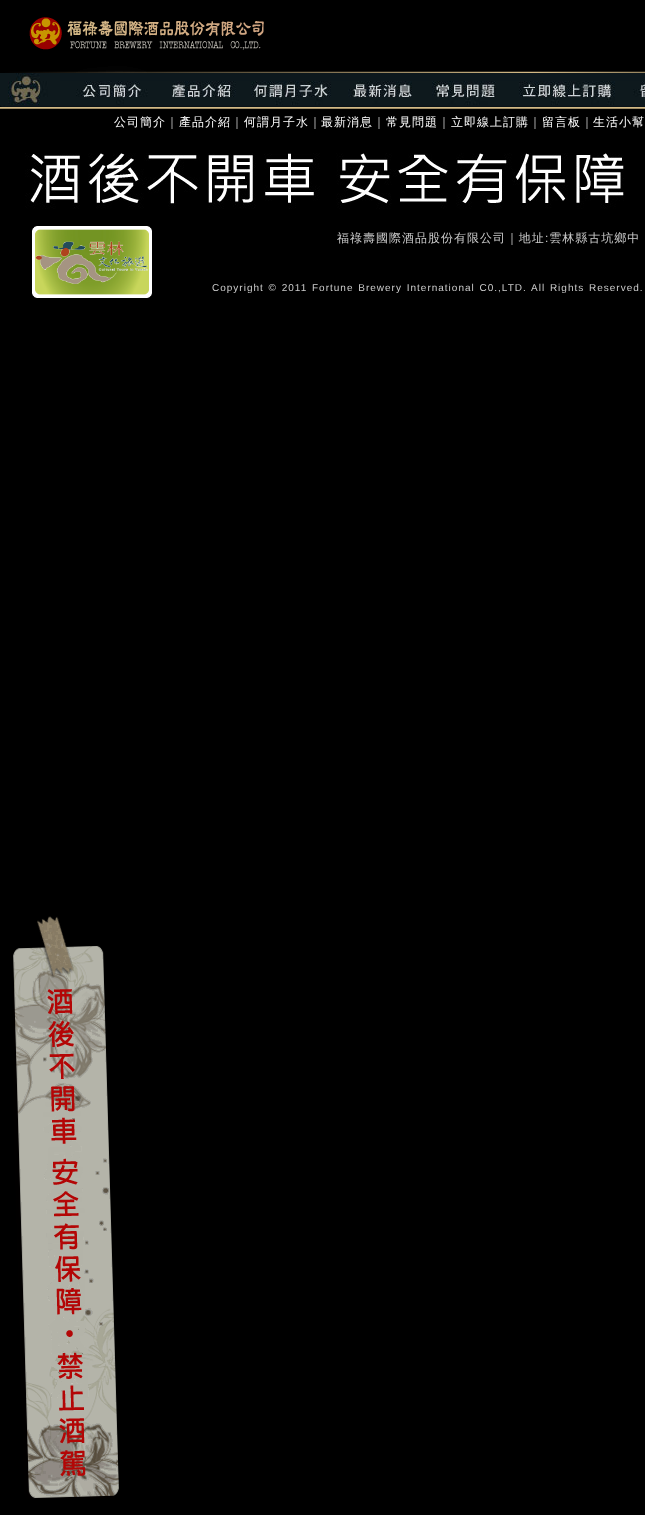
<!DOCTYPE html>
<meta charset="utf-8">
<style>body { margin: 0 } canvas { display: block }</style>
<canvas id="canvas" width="645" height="1515"></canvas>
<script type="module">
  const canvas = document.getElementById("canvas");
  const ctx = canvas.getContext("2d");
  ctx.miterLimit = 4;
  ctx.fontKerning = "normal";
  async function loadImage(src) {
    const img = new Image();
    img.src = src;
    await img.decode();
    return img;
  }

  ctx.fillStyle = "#000000";
  ctx.fillRect(0, 0, 645, 1515);
  ctx.drawImage(await loadImage("img1.png"), 0, 0, 645, 73);
  ctx.fillStyle = "#0d181d";
  ctx.fillRect(60, 73, 585, 8);
  ctx.fillStyle = "#d4ba86";
  ctx.fillRect(0, 107, 645, 1);
  ctx.drawImage(await loadImage("img2.png"), 0, 73, 60, 34);
  ctx.drawImage(await loadImage("img3.png"), 60, 81, 96, 26);
  ctx.drawImage(await loadImage("img4.png"), 156, 81, 87, 26);
  ctx.drawImage(await loadImage("img5.png"), 243, 81, 97, 26);
  ctx.drawImage(await loadImage("img6.png"), 340, 81, 84, 26);
  ctx.drawImage(await loadImage("img7.png"), 424, 81, 87, 26);
  ctx.drawImage(await loadImage("img8.png"), 511, 81, 114, 26);
  ctx.drawImage(await loadImage("img9.png"), 625, 81, 20, 26);
  ctx.fillStyle = "#9f8c65";
  ctx.fillRect(0, 108, 645, 1);
  ctx.letterSpacing = "1px";
  ctx.font = "500 12px WenQuanYi Zen Hei";
  ctx.fillStyle = "#ffffff";
  ctx.fillText("公司簡介", 114, 126);
  ctx.fillStyle = "#cccccc";
  ctx.fillText("｜", 166, 126);
  ctx.fillStyle = "#ffffff";
  ctx.fillText("產品介紹", 179, 126);
  ctx.fillStyle = "#cccccc";
  ctx.fillText("｜", 231, 126);
  ctx.fillStyle = "#ffffff";
  ctx.fillText("何謂月子水", 244, 126);
  ctx.fillStyle = "#cccccc";
  ctx.fillText("｜", 309, 126);
  ctx.fillStyle = "#ffffff";
  ctx.fillText("最新消息", 321, 126);
  ctx.fillStyle = "#cccccc";
  ctx.fillText("｜", 373, 126);
  ctx.fillStyle = "#ffffff";
  ctx.fillText("常見問題", 386, 126);
  ctx.fillStyle = "#cccccc";
  ctx.fillText("｜", 438, 126);
  ctx.fillStyle = "#ffffff";
  ctx.fillText("立即線上訂購", 451, 126);
  ctx.fillStyle = "#cccccc";
  ctx.fillText("｜", 529, 126);
  ctx.fillStyle = "#ffffff";
  ctx.fillText("留言板", 542, 126);
  ctx.fillStyle = "#cccccc";
  ctx.fillText("｜", 581, 126);
  ctx.fillStyle = "#ffffff";
  ctx.fillText("生活小幫", 593, 126);
  ctx.drawImage(await loadImage("img10.png"), 25, 153, 599, 56);
  ctx.drawImage(await loadImage("img11.png"), 32, 226, 120, 72);
  ctx.fillStyle = "#cccccc";
  ctx.fillText("福祿壽國際酒品股份有限公司｜地址 雲林縣古坑鄉中", 337, 242);
  ctx.font = "12px Liberation Sans";
  ctx.fillText(":", 545, 242);
  ctx.wordSpacing = "1px";
  ctx.font = "10px Liberation Sans";
  ctx.fillText("Copyright © 2011 Fortune Brewery International C0.,LTD. All Rights Reserved.", 212, 291);
  ctx.drawImage(await loadImage("img12.png"), 13, 916, 106, 583);
</script>
